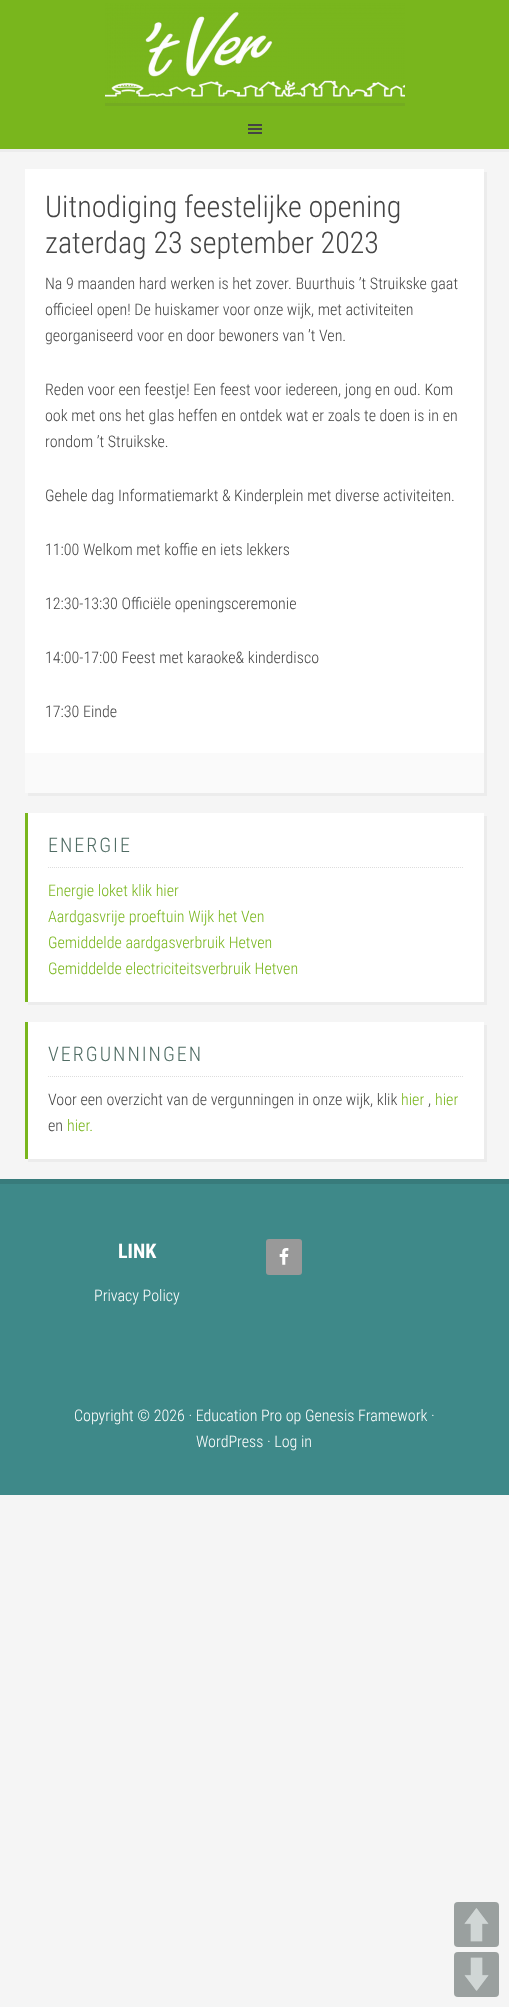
<!DOCTYPE html>
<meta charset="utf-8">
<style>body { margin: 0 } canvas { display: block }</style>
<canvas id="canvas" width="509" height="2007"></canvas>
<script type="module">
  const canvas = document.getElementById("canvas");
  const ctx = canvas.getContext("2d");
  ctx.miterLimit = 4;
  ctx.fontKerning = "normal";
  async function loadImage(src) {
    const img = new Image();
    img.src = src;
    await img.decode();
    return img;
  }

  ctx.fillStyle = "#f5f5f5";
  ctx.fillRect(0, 0, 509, 2007);
  ctx.fillStyle = "#ececec";
  ctx.fillRect(0, 149, 509, 3);
  ctx.fillStyle = "#79b61d";
  ctx.fillRect(0, 0, 509, 149);
  ctx.fillStyle = "#74ab21";
  ctx.fillRect(105, 103, 300, 3);
  ctx.drawImage(await loadImage("img1.png"), 105, 3, 300, 100);
  ctx.drawImage(await loadImage("img2.png"), 248, 124, 14, 10);
  ctx.fillStyle = "#ececec";
  ctx.beginPath();
  ctx.moveTo(28, 793);
  ctx.lineTo(28, 796);
  ctx.lineTo(487, 796);
  ctx.lineTo(487, 172);
  ctx.lineTo(484, 172);
  ctx.lineTo(484, 793);
  ctx.closePath();
  ctx.fill();
  ctx.fillStyle = "#ffffff";
  ctx.fillRect(25, 169, 459, 584);
  ctx.font = "300 30px Roboto Condensed";
  ctx.fillStyle = "#444444";
  ctx.fillText("Uitnodiging feestelijke opening", 45, 217);
  ctx.fillText("zaterdag 23 september 2023", 45, 253);
  ctx.font = "300 16px Roboto Condensed";
  ctx.fillText("Na 9 maanden hard werken is het zover. Buurthuis ’t Struikske gaat", 45, 289);
  ctx.fillText("officieel open! De huiskamer voor onze wijk, met activiteiten", 45, 315);
  ctx.fillText("georganiseerd voor en door bewoners van ’t Ven.", 45, 341);
  ctx.fillText("Reden voor een feestje! Een feest voor iedereen, jong en oud. Kom", 45, 395);
  ctx.fillText("ook met ons het glas heffen en ontdek wat er zoals te doen is in en", 45, 421);
  ctx.fillText("rondom ’t Struikske.", 45, 447);
  ctx.fillText("Gehele dag Informatiemarkt & Kinderplein met diverse activiteiten.", 45, 501);
  ctx.fillText("11:00 Welkom met koffie en iets lekkers", 45, 555);
  ctx.fillText("12:30-13:30 Officiële openingsceremonie", 45, 609);
  ctx.fillText("14:00-17:00 Feest met karaoke& kinderdisco", 45, 663);
  ctx.fillText("17:30 Einde", 45, 717);
  ctx.fillStyle = "#fafafa";
  ctx.fillRect(25, 753, 459, 40);
  ctx.fillStyle = "#ececec";
  ctx.beginPath();
  ctx.moveTo(28, 1002);
  ctx.lineTo(28, 1005);
  ctx.lineTo(487, 1005);
  ctx.lineTo(487, 816);
  ctx.lineTo(484, 816);
  ctx.lineTo(484, 1002);
  ctx.closePath();
  ctx.fill();
  ctx.fillStyle = "#ffffff";
  ctx.fillRect(28, 813, 456, 189);
  ctx.fillStyle = "#79b61d";
  ctx.fillRect(25, 813, 3, 189);
  ctx.beginPath();
  ctx.moveTo(48, 867.5);
  ctx.lineTo(464, 867.5);
  ctx.strokeStyle = "#dddddd";
  ctx.setLineDash([1, 1]);
  ctx.stroke();
  ctx.letterSpacing = "2px";
  ctx.font = "300 20px Roboto Condensed";
  ctx.fillStyle = "#506c64";
  ctx.fillText("ENERGIE", 48, 852);
  ctx.letterSpacing = "0px";
  ctx.font = "300 16px Roboto Condensed";
  ctx.fillStyle = "#79b61d";
  ctx.fillText("Energie loket klik hier", 48, 896);
  ctx.fillText("Aardgasvrije proeftuin Wijk het Ven", 48, 922);
  ctx.fillText("Gemiddelde aardgasverbruik Hetven", 48, 948);
  ctx.fillText("Gemiddelde electriciteitsverbruik Hetven", 48, 974);
  ctx.fillStyle = "#ececec";
  ctx.beginPath();
  ctx.moveTo(28, 1159);
  ctx.lineTo(28, 1162);
  ctx.lineTo(487, 1162);
  ctx.lineTo(487, 1025);
  ctx.lineTo(484, 1025);
  ctx.lineTo(484, 1159);
  ctx.closePath();
  ctx.fill();
  ctx.fillStyle = "#ffffff";
  ctx.fillRect(28, 1022, 456, 137);
  ctx.fillStyle = "#79b61d";
  ctx.fillRect(25, 1022, 3, 137);
  ctx.beginPath();
  ctx.moveTo(48, 1076.5);
  ctx.lineTo(464, 1076.5);
  ctx.stroke();
  ctx.letterSpacing = "2px";
  ctx.font = "300 20px Roboto Condensed";
  ctx.fillStyle = "#506c64";
  ctx.fillText("VERGUNNINGEN", 48, 1061);
  ctx.letterSpacing = "0px";
  ctx.font = "300 16px Roboto Condensed";
  ctx.fillStyle = "#444444";
  ctx.fillText("Voor een overzicht van de vergunningen in onze wijk, klik", 48, 1105);
  ctx.fillStyle = "#79b61d";
  ctx.fillText("hier", 401, 1105);
  ctx.fillStyle = "#444444";
  ctx.fillText(",", 428, 1105);
  ctx.fillStyle = "#79b61d";
  ctx.fillText("hier", 435, 1105);
  ctx.fillStyle = "#444444";
  ctx.fillText("en", 48, 1131);
  ctx.fillStyle = "#79b61d";
  ctx.fillText("hier.", 67, 1131);
  ctx.fillStyle = "#3e8989";
  ctx.fillRect(0, 1184, 509, 311);
  ctx.fillStyle = "#387b7b";
  ctx.fillRect(0, 1179, 509, 5);
  ctx.font = "bold 20px Roboto Condensed";
  ctx.fillStyle = "#ffffff";
  ctx.fillText("LINK", 118, 1258);
  ctx.font = "300 16px Roboto Condensed";
  ctx.fillText("Privacy Policy", 94, 1301);
  ctx.fillStyle = "#999999";
  ctx.beginPath();
  ctx.roundRect(266, 1239, 36, 36, 3);
  ctx.fill();
  ctx.drawImage(await loadImage("img3.png"), 279, 1248, 10, 17);
  ctx.fillStyle = "#ffffff";
  ctx.fillText("Copyright © 2026 · Education Pro op Genesis Framework ·", 74, 1421);
  ctx.fillText("WordPress · Log in", 196, 1447);
  ctx.fillStyle = "#c4ccca";
  ctx.beginPath();
  ctx.roundRect(454, 1902, 45, 45, 4);
  ctx.fill();
  ctx.drawImage(await loadImage("img4.png"), 454, 1902, 45, 45);
  ctx.beginPath();
  ctx.roundRect(454, 1952, 45, 45, 4);
  ctx.fill();
  ctx.drawImage(await loadImage("img5.png"), 454, 1952, 45, 45);
</script>
